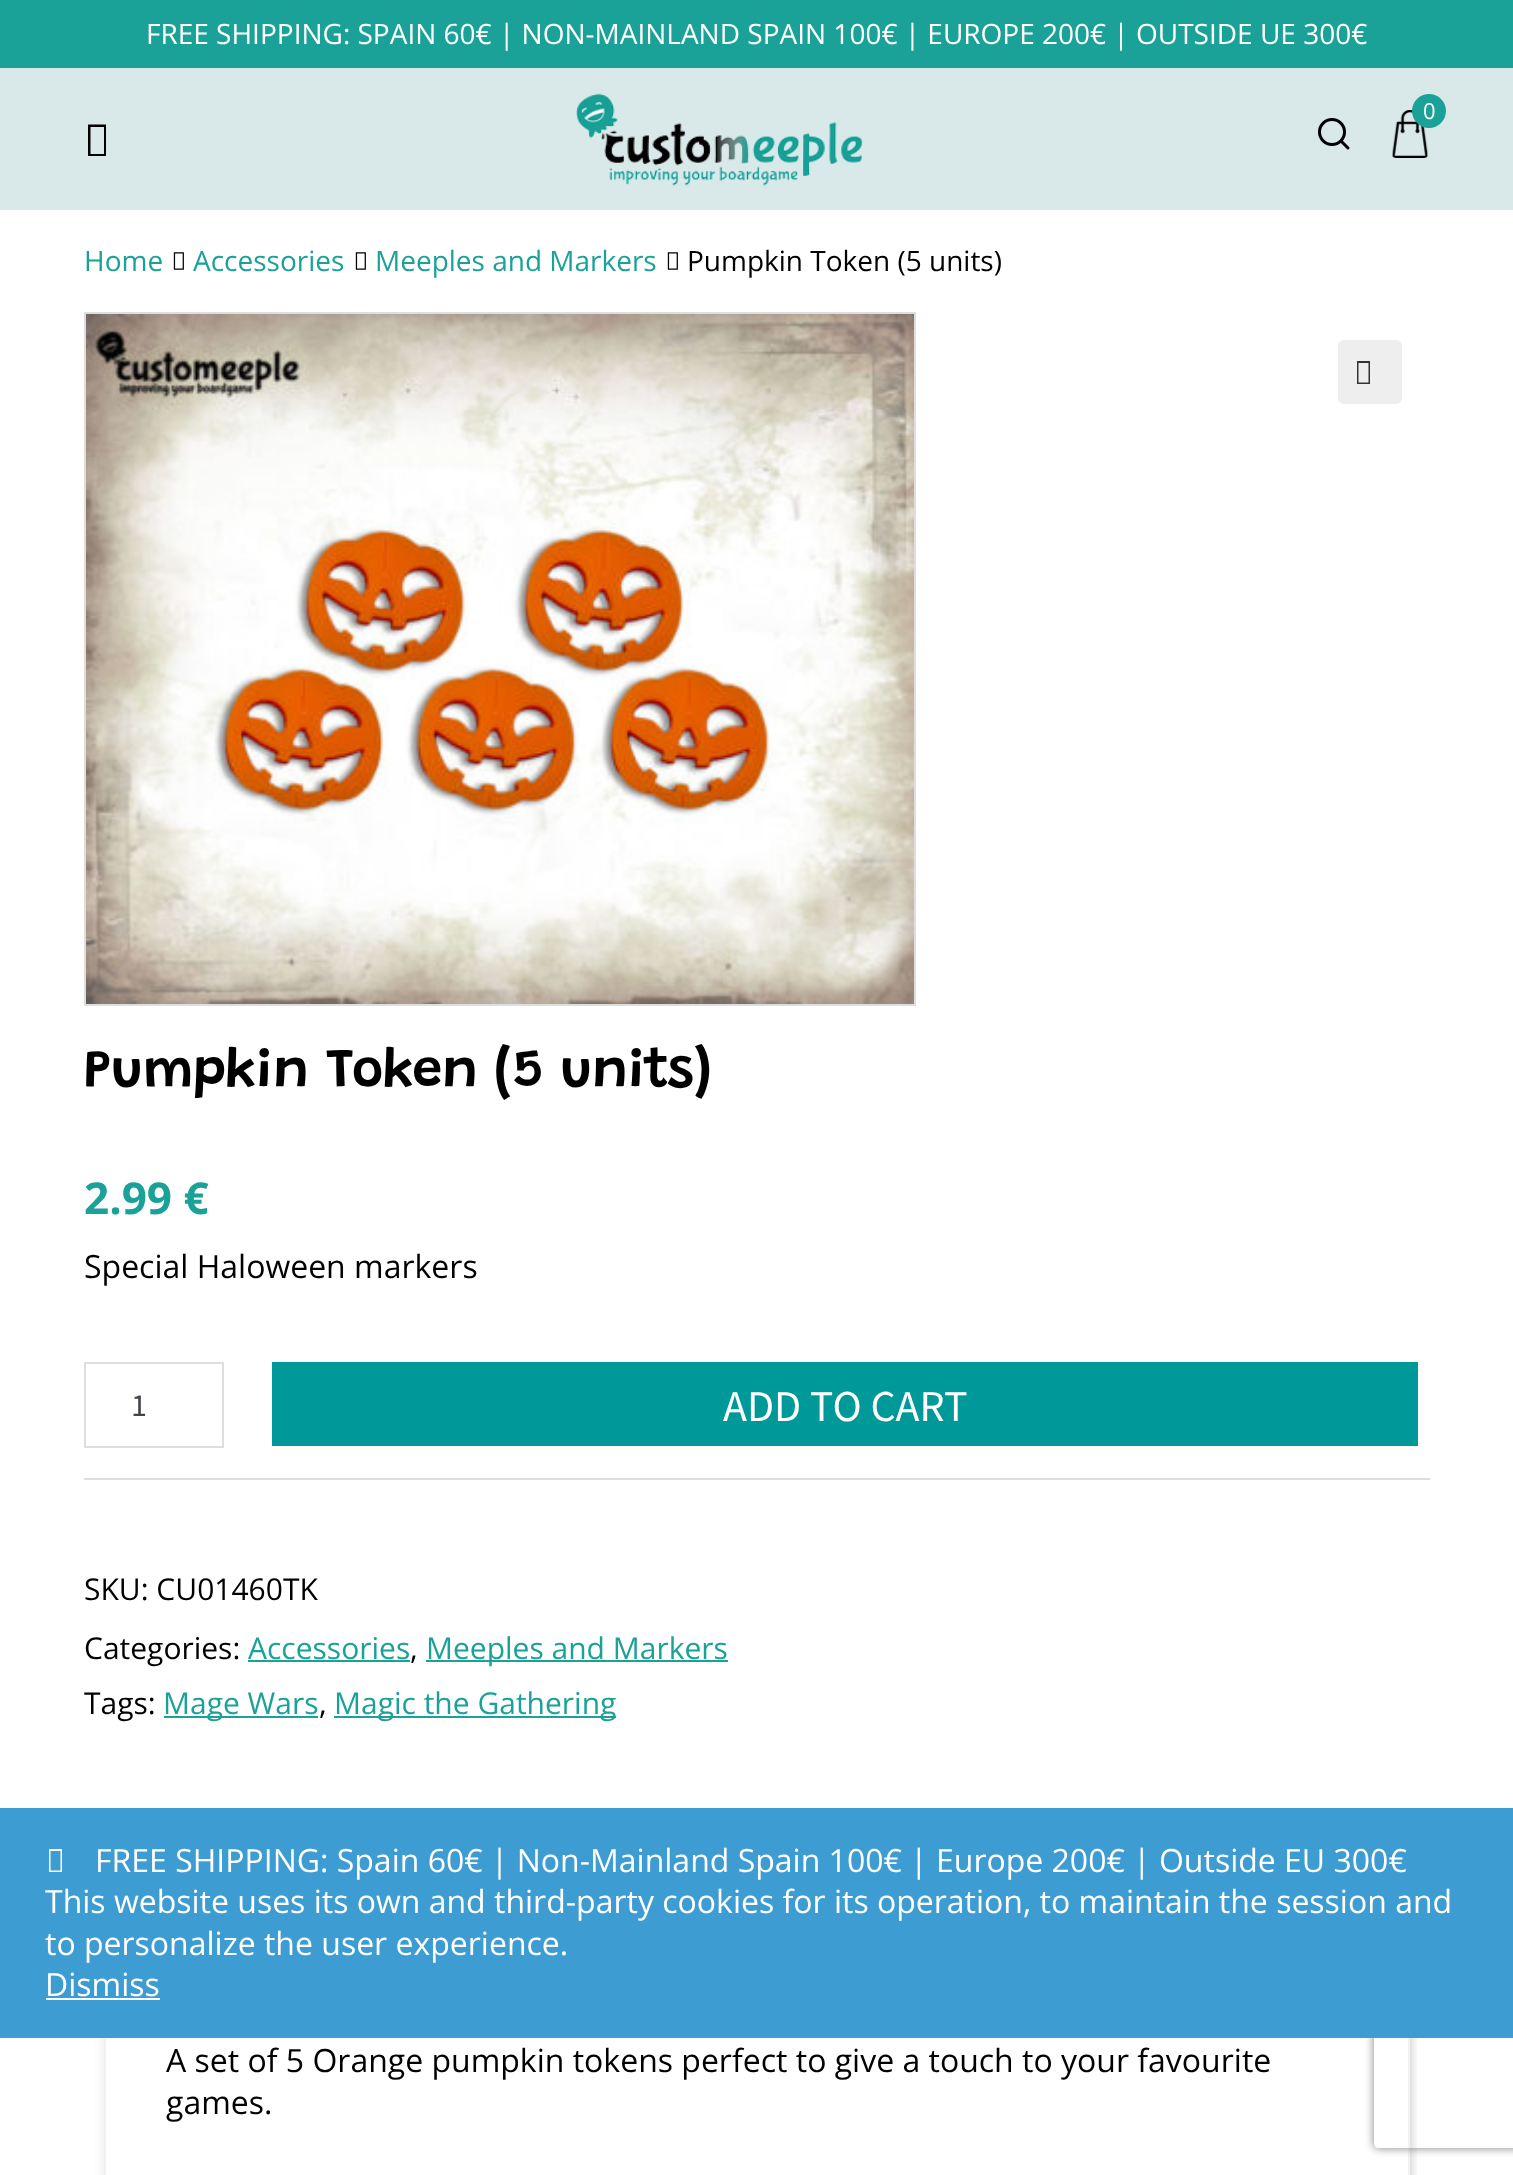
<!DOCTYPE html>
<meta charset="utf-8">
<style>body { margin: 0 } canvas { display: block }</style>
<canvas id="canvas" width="1513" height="2175"></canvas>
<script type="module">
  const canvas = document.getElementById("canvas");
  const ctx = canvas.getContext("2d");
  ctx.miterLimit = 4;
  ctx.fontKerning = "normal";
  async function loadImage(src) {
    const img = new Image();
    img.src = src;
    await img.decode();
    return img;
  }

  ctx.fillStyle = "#ffffff";
  ctx.fillRect(0, 0, 1513, 2175);
  ctx.fillStyle = "#1ba298";
  ctx.fillRect(0, 0, 1513, 68);
  ctx.font = "28px Open Sans";
  ctx.fillStyle = "#ffffff";
  ctx.fillText("FREE SHIPPING: SPAIN 60€ | NON-MAINLAND SPAIN 100€ | EUROPE 200€ | OUTSIDE UE 300€", 146, 44);
  ctx.fillStyle = "#d9e9e9";
  ctx.fillRect(0, 68, 1513, 142);
  ctx.drawImage(await loadImage("img1.png"), 576, 93, 287, 93);
  ctx.drawImage(await loadImage("img2.png"), 1392, 110, 36, 48);
  ctx.fillStyle = "#1ba298";
  ctx.beginPath();
  ctx.arc(1429, 111, 17, 0, Math.PI * 2);
  ctx.fill();
  ctx.font = "22px Open Sans";
  ctx.fillStyle = "#ffffff";
  ctx.fillText("0", 1423, 119);
  ctx.beginPath();
  ctx.arc(1332, 132, 12.5, 0, Math.PI * 2);
  ctx.strokeStyle = "#000000";
  ctx.lineWidth = 3;
  ctx.stroke();
  ctx.beginPath();
  ctx.moveTo(1342, 142);
  ctx.lineTo(1348, 148);
  ctx.lineCap = "round";
  ctx.stroke();
  ctx.fillStyle = "#000000";
  ctx.beginPath();
  ctx.moveTo(88, 156);
  ctx.lineTo(88, 124.5);
  ctx.lineTo(106, 124.5);
  ctx.lineTo(106, 156);
  ctx.closePath();
  ctx.moveTo(90.5, 154);
  ctx.lineTo(104, 154);
  ctx.lineTo(104, 127);
  ctx.lineTo(90.5, 127);
  ctx.closePath();
  ctx.fill();
  ctx.font = "28px Open Sans";
  ctx.fillStyle = "#1ba298";
  ctx.fillText("Home", 84, 271);
  ctx.drawImage(await loadImage("img3.png"), 173, 252, 11, 18);
  ctx.fillText("Accessories", 193, 271);
  ctx.drawImage(await loadImage("img3.png"), 355, 252, 11, 18);
  ctx.fillText("Meeples and Markers", 375, 271);
  ctx.drawImage(await loadImage("img3.png"), 667, 252, 11, 18);
  ctx.fillStyle = "#000000";
  ctx.fillText("Pumpkin Token (5 units)", 687, 271);
  ctx.strokeStyle = "#dedede";
  ctx.lineWidth = 2;
  ctx.strokeRect(85, 313, 830, 692);
  ctx.drawImage(await loadImage("img4.png"), 86, 314, 828, 690);
  ctx.fillStyle = "#eeeeee";
  ctx.beginPath();
  ctx.roundRect(1338, 340, 64, 64, 6);
  ctx.fill();
  ctx.fillStyle = "#333333";
  ctx.beginPath();
  ctx.moveTo(1357, 384);
  ctx.lineTo(1357, 361);
  ctx.lineTo(1370, 361);
  ctx.lineTo(1370, 384);
  ctx.closePath();
  ctx.moveTo(1358.5, 382.5);
  ctx.lineTo(1368.5, 382.5);
  ctx.lineTo(1368.5, 363);
  ctx.lineTo(1358.5, 363);
  ctx.closePath();
  ctx.fill();
  ctx.font = "600 54px Grandstander";
  ctx.fillStyle = "#000000";
  ctx.fillText("Pumpkin Token (5 units)", 84, 1086);
  ctx.font = "bold 44px Open Sans";
  ctx.fillStyle = "#1ba298";
  ctx.fillText("2.99 €", 84, 1214);
  ctx.font = "32px Open Sans";
  ctx.fillStyle = "#000000";
  ctx.fillText("Special Haloween markers", 84, 1278);
  ctx.fillStyle = "#dedede";
  ctx.fillRect(84, 1478, 1346, 2);
  ctx.strokeRect(85, 1363, 138, 84);
  ctx.font = "32px Source Sans Pro";
  ctx.fillStyle = "#43454b";
  ctx.fillText("1", 131, 1416);
  ctx.fillStyle = "#009999";
  ctx.fillRect(272, 1362, 1146, 84);
  ctx.font = "44px Source Sans Pro";
  ctx.fillStyle = "#ffffff";
  ctx.fillText("ADD TO CART", 723, 1421);
  ctx.font = "30px Open Sans";
  ctx.fillStyle = "#000000";
  ctx.fillText("SKU: CU01460TK", 84, 1600);
  ctx.fillText("Categories:", 84, 1659);
  ctx.fillStyle = "#1ba298";
  ctx.fillText("Accessories", 248, 1659);
  ctx.fillRect(248, 1660, 162, 2);
  ctx.fillStyle = "#000000";
  ctx.fillText(",", 410, 1659);
  ctx.fillStyle = "#1ba298";
  ctx.fillRect(426, 1660, 302, 2);
  ctx.fillText("Meeples and Markers", 426, 1659);
  ctx.fillStyle = "#000000";
  ctx.fillText("Tags:", 84, 1714);
  ctx.fillStyle = "#1ba298";
  ctx.fillRect(164, 1716, 154, 2);
  ctx.fillText("Mage Wars", 163, 1714);
  ctx.fillStyle = "#000000";
  ctx.fillText(",", 319, 1714);
  ctx.fillStyle = "#1ba298";
  ctx.fillRect(334, 1716, 282, 2);
  ctx.fillText("Magic the Gathering", 334, 1714);
  ctx.save();
  ctx.beginPath();
  ctx.rect(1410, 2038, 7, 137);
  ctx.clip();
  ctx.fillStyle = "rgba(0, 0, 0, 0.08)";
  ctx.filter = "blur(4px)";
  ctx.beginPath();
  ctx.rect(108, 1870, 1306, 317);
  ctx.fill();
  ctx.filter = "none";
  ctx.restore();
  ctx.save();
  ctx.beginPath();
  ctx.moveTo(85, 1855);
  ctx.lineTo(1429, 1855);
  ctx.lineTo(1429, 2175);
  ctx.lineTo(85, 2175);
  ctx.closePath();
  ctx.moveTo(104, 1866);
  ctx.lineTo(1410, 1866);
  ctx.lineTo(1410, 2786);
  ctx.lineTo(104, 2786);
  ctx.closePath();
  ctx.clip("evenodd");
  ctx.fillStyle = "rgba(0, 0, 0, 0.1)";
  ctx.filter = "blur(6px)";
  ctx.beginPath();
  ctx.rect(104, 1874, 1306, 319);
  ctx.fill();
  ctx.filter = "none";
  ctx.restore();
  ctx.strokeStyle = "#f1f2f2";
  ctx.strokeRect(105, 1867, 1304, 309);
  ctx.font = "32px Open Sans";
  ctx.fillStyle = "#000000";
  ctx.fillText("A set of 5 Orange pumpkin tokens perfect to give a touch to your favourite", 166, 2072);
  ctx.fillText("games.", 166, 2114);
  ctx.save();
  ctx.beginPath();
  ctx.moveTo(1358, 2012);
  ctx.lineTo(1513, 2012);
  ctx.lineTo(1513, 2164);
  ctx.lineTo(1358, 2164);
  ctx.closePath();
  ctx.moveTo(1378, 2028);
  ctx.lineTo(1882, 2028);
  ctx.bezierCurveTo(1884, 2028, 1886, 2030, 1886, 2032);
  ctx.lineTo(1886, 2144);
  ctx.bezierCurveTo(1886, 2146, 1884, 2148, 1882, 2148);
  ctx.lineTo(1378, 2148);
  ctx.bezierCurveTo(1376, 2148, 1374, 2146, 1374, 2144);
  ctx.lineTo(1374, 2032);
  ctx.bezierCurveTo(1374, 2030, 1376, 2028, 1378, 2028);
  ctx.closePath();
  ctx.clip("evenodd");
  ctx.fillStyle = "#808080";
  ctx.filter = "blur(5px)";
  ctx.beginPath();
  ctx.roundRect(1374, 2028, 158, 120, 4);
  ctx.fill();
  ctx.filter = "none";
  ctx.restore();
  ctx.fillStyle = "#3d9cd2";
  ctx.fillRect(0, 1808, 1513, 230);
  ctx.fillStyle = "#ffffff";
  ctx.beginPath();
  ctx.moveTo(49, 1872);
  ctx.lineTo(49, 1849);
  ctx.lineTo(62, 1849);
  ctx.lineTo(62, 1872);
  ctx.closePath();
  ctx.moveTo(50.5, 1870.5);
  ctx.lineTo(60.5, 1870.5);
  ctx.lineTo(60.5, 1851);
  ctx.lineTo(50.5, 1851);
  ctx.closePath();
  ctx.fill();
  ctx.fillText("FREE SHIPPING: Spain 60€ | Non-Mainland Spain 100€ | Europe 200€ | Outside EU 300€", 95, 1872);
  ctx.fillText("This website uses its own and third-party cookies for its operation, to maintain the session and", 45, 1913);
  ctx.fillText("to personalize the user experience.", 45, 1955);
  ctx.fillText("Dismiss", 45, 1996);
  ctx.fillRect(46, 1998, 114, 2);
</script>
